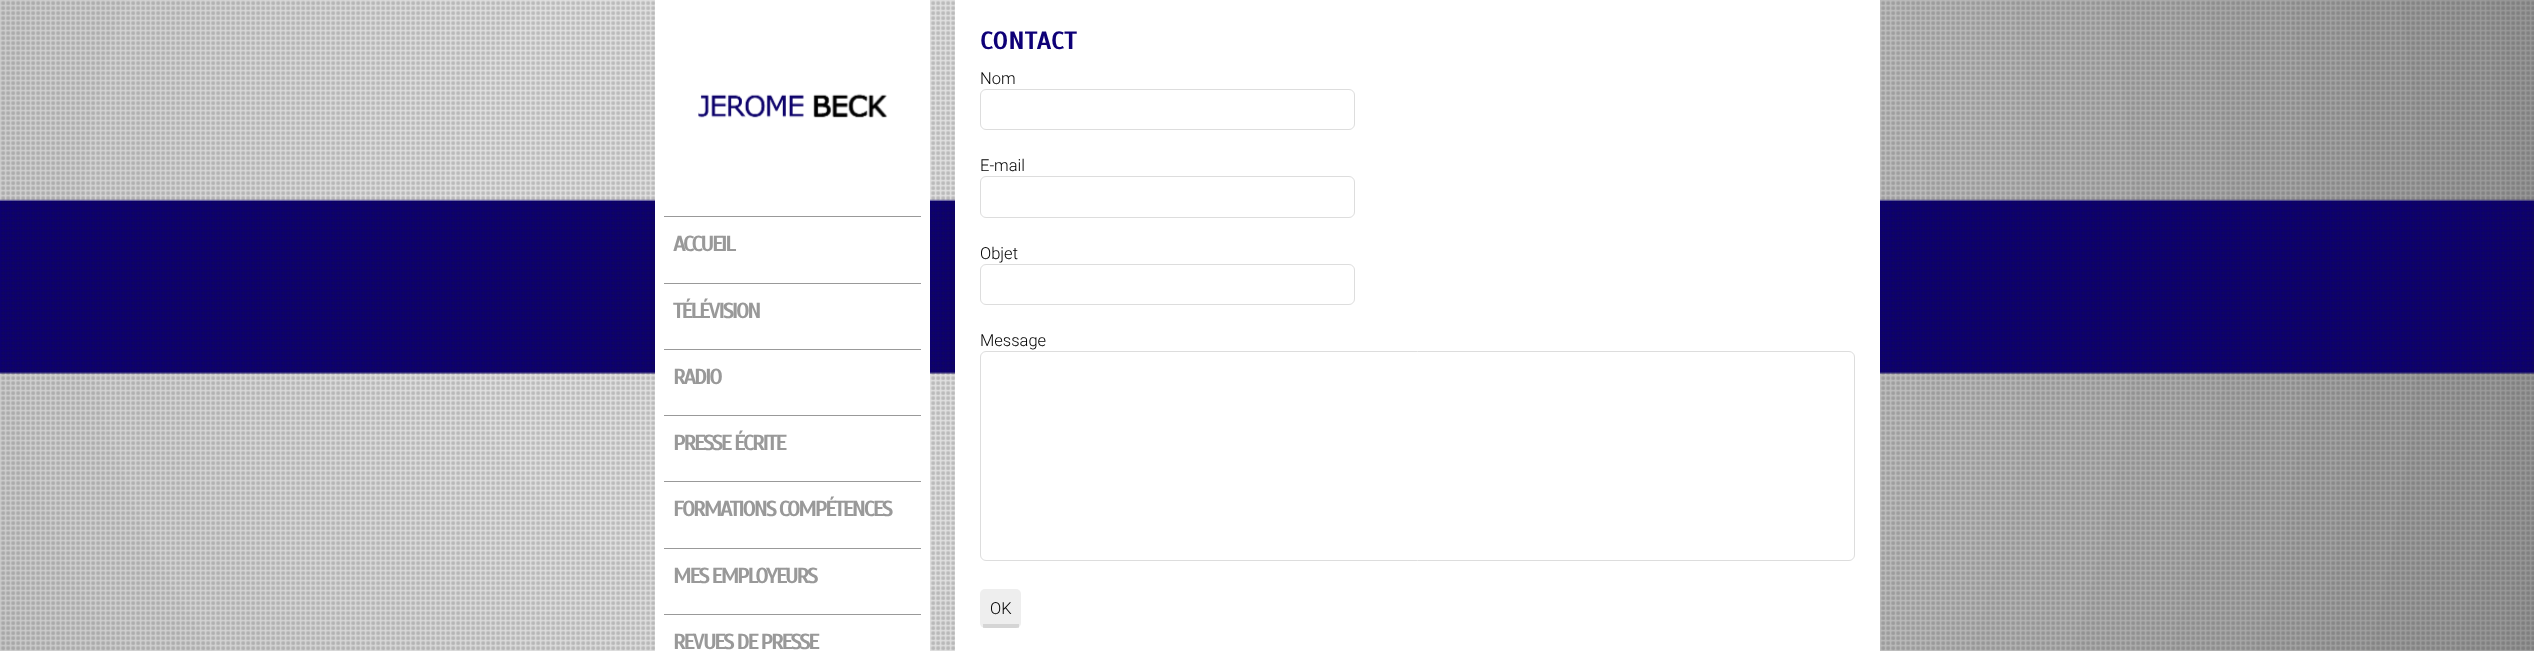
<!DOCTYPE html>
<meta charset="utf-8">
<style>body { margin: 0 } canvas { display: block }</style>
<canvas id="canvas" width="2534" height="651"></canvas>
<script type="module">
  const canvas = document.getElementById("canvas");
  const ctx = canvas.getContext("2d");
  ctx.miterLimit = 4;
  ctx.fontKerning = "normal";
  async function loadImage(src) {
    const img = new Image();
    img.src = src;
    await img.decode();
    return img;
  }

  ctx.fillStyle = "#ffffff";
  ctx.fillRect(0, 0, 2534, 651);
  ctx.drawImage(await loadImage("img1.png"), 0, 0, 2534, 651);
  ctx.drawImage(await loadImage("img2.png"), 0, 0, 2534, 651);
  ctx.fillRect(655, 0, 275, 651);
  ctx.drawImage(await loadImage("img3.png"), 698, 93, 190, 25);
  ctx.fillStyle = "#999999";
  ctx.fillRect(664, 216, 257, 1);
  ctx.fillRect(664, 283, 257, 1);
  ctx.letterSpacing = "-2.5px";
  ctx.font = "bold 21.75px Scada";
  ctx.fillText("ACCUEIL", 673, 251);
  ctx.fillRect(664, 349, 257, 1);
  ctx.fillText("TÉLÉVISION", 673, 318);
  ctx.fillRect(664, 415, 257, 1);
  ctx.fillText("RADIO", 673, 384);
  ctx.fillRect(664, 481, 257, 1);
  ctx.fillText("PRESSE ÉCRITE", 673, 450);
  ctx.fillRect(664, 548, 257, 1);
  ctx.fillText("FORMATIONS COMPÉTENCES", 673, 516);
  ctx.fillRect(664, 614, 257, 1);
  ctx.fillText("MES EMPLOYEURS", 673, 583);
  ctx.fillText("REVUES DE PRESSE", 673, 649);
  ctx.fillStyle = "#ffffff";
  ctx.fillRect(955, 0, 925, 651);
  ctx.letterSpacing = "0px";
  ctx.font = "bold 25px Scada";
  ctx.fillStyle = "#0e0077";
  ctx.fillText("CONTACT", 980, 49);
  ctx.font = "300 16.5px Roboto";
  ctx.fillStyle = "#000000";
  ctx.fillText("Nom", 980, 84);
  ctx.beginPath();
  ctx.roundRect(980.5, 89.5, 374, 40, 5.5);
  ctx.strokeStyle = "#dddddd";
  ctx.stroke();
  ctx.fillText("E-mail", 980, 171);
  ctx.beginPath();
  ctx.roundRect(980.5, 176.5, 374, 41, 5.5);
  ctx.stroke();
  ctx.fillText("Objet", 980, 259);
  ctx.beginPath();
  ctx.roundRect(980.5, 264.5, 374, 40, 5.5);
  ctx.stroke();
  ctx.fillText("Message", 980, 346);
  ctx.beginPath();
  ctx.roundRect(980.5, 351.5, 874, 209, 5.5);
  ctx.stroke();
  ctx.fillStyle = "#eeeeee";
  ctx.beginPath();
  ctx.roundRect(980, 589, 41, 39, 5);
  ctx.fill();
  ctx.fillStyle = "rgba(0, 0, 0, 0.1)";
  ctx.fillRect(983, 624, 36, 4);
  ctx.fillStyle = "#000000";
  ctx.fillText("OK", 990, 614);
</script>
